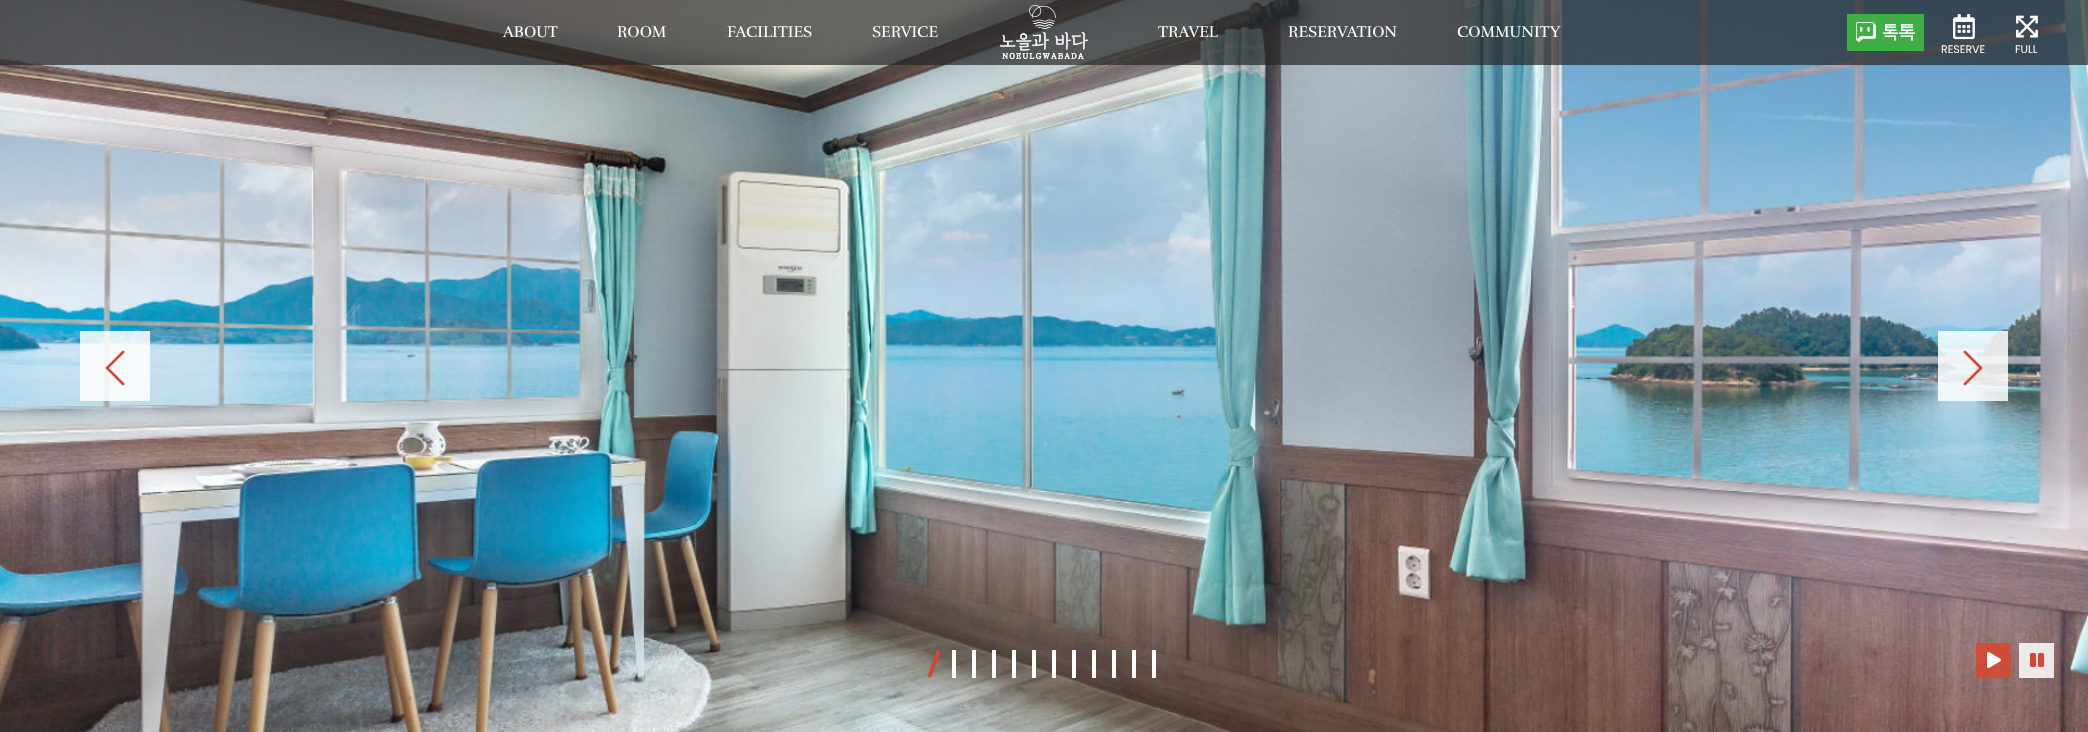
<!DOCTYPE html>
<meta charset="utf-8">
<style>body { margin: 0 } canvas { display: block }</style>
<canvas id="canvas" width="2088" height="732"></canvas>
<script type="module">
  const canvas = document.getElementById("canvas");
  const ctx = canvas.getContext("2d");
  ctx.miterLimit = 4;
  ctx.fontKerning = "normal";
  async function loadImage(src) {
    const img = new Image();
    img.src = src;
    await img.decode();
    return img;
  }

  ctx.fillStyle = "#ffffff";
  ctx.fillRect(0, 0, 2088, 732);
  ctx.drawImage(await loadImage("img1.png"), 0, 0, 2088, 732);
  ctx.fillStyle = "rgba(255, 255, 255, 0.85)";
  ctx.fillRect(80, 331, 70, 70);
  ctx.drawImage(await loadImage("img2.png"), 105, 350, 20, 36);
  ctx.fillRect(1938, 331, 70, 70);
  ctx.drawImage(await loadImage("img3.png"), 1963, 350, 20, 36);
  ctx.fillStyle = "#da4531";
  ctx.beginPath();
  ctx.moveTo(937, 650);
  ctx.lineTo(940.5, 651.5);
  ctx.lineTo(931, 678);
  ctx.lineTo(927.5, 676.5);
  ctx.closePath();
  ctx.fill();
  ctx.fillStyle = "#ffffff";
  ctx.fillRect(952, 650, 4, 28);
  ctx.fillRect(972, 650, 4, 28);
  ctx.fillRect(992, 650, 4, 28);
  ctx.fillRect(1012, 650, 4, 28);
  ctx.fillRect(1032, 650, 4, 28);
  ctx.fillRect(1052, 650, 4, 28);
  ctx.fillRect(1072, 650, 4, 28);
  ctx.fillRect(1092, 650, 4, 28);
  ctx.fillRect(1112, 650, 4, 28);
  ctx.fillRect(1132, 650, 4, 28);
  ctx.fillRect(1152, 650, 4, 28);
  ctx.fillStyle = "rgba(218, 69, 49, 0.85)";
  ctx.fillRect(1976, 643, 35, 35);
  ctx.drawImage(await loadImage("img4.png"), 1987, 652, 14, 16);
  ctx.fillStyle = "rgba(255, 255, 255, 0.85)";
  ctx.fillRect(2019, 643, 35, 35);
  ctx.drawImage(await loadImage("img5.png"), 2030, 653, 14, 14);
  ctx.fillStyle = "rgba(37, 37, 37, 0.7)";
  ctx.fillRect(0, 0, 2088, 65);
  ctx.drawImage(await loadImage("img6.png"), 1000, 5, 88, 54);
  ctx.drawImage(await loadImage("img7.png"), 1847, 14, 77, 37);
  ctx.font = "16px Rufina";
  ctx.fillStyle = "#ffffff";
  ctx.fillText("ABOUT", 503, 37);
  ctx.fillText("ROOM", 617, 37);
  ctx.fillText("FACILITIES", 727, 37);
  ctx.fillText("SERVICE", 872, 37);
  ctx.fillText("TRAVEL", 1158, 37);
  ctx.fillText("RESERVATION", 1288, 37);
  ctx.fillText("COMMUNITY", 1457, 37);
  ctx.drawImage(await loadImage("img8.png"), 1953, 14, 22, 26);
  ctx.font = "11px Poppins";
  ctx.fillText("RESERVE", 1941, 53);
  ctx.drawImage(await loadImage("img9.png"), 2016, 15, 22, 23);
  ctx.fillText("FULL", 2015, 53);
</script>
